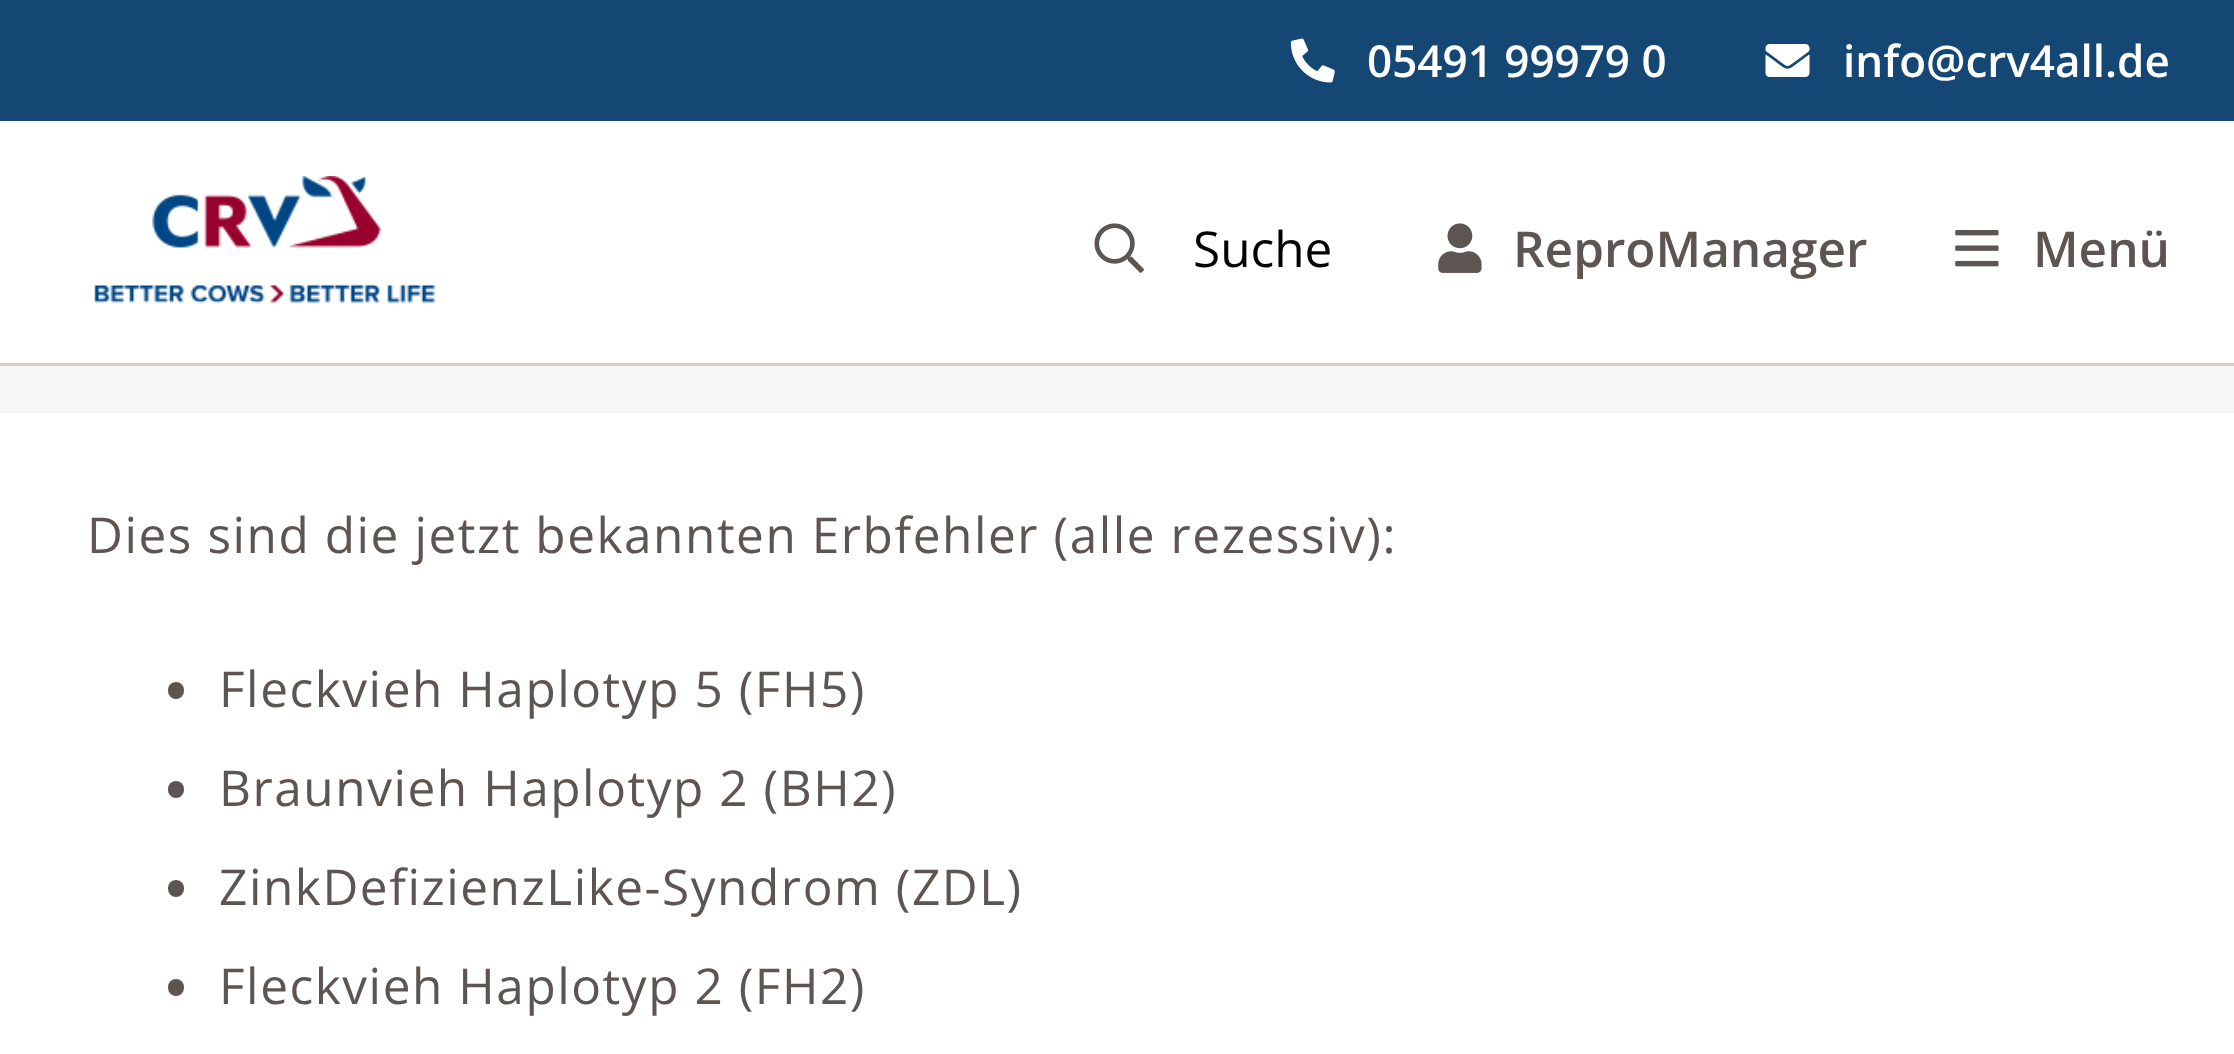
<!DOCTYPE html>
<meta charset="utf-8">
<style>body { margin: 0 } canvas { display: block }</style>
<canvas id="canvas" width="2234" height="1054"></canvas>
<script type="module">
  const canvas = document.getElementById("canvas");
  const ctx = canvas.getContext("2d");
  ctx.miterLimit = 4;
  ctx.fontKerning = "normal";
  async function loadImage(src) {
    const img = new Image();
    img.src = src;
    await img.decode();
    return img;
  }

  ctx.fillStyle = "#ffffff";
  ctx.fillRect(0, 0, 2234, 1054);
  ctx.fillStyle = "#d2ccc8";
  ctx.fillRect(0, 363, 2234, 3);
  ctx.fillStyle = "#154775";
  ctx.fillRect(0, 0, 2234, 121);
  ctx.drawImage(await loadImage("img1.png"), 1290, 38, 45, 45);
  ctx.font = "600 44px Open Sans";
  ctx.fillStyle = "#ffffff";
  ctx.fillText("05491 99979 0", 1367, 77);
  ctx.drawImage(await loadImage("img2.png"), 1765, 44, 45, 33);
  ctx.fillText("info@crv4all.de", 1843, 77);
  ctx.drawImage(await loadImage("img3.png"), 94, 176, 342, 128);
  ctx.drawImage(await loadImage("img4.png"), 1094, 223, 50, 50);
  ctx.font = "49.5px Open Sans";
  ctx.fillStyle = "#000000";
  ctx.fillText("Suche", 1193, 267);
  ctx.drawImage(await loadImage("img5.png"), 1438, 223, 44, 50);
  ctx.font = "600 49.5px Open Sans";
  ctx.fillStyle = "#5d5551";
  ctx.fillText("ReproManager", 1513, 267);
  ctx.drawImage(await loadImage("img6.png"), 1955, 230, 44, 37);
  ctx.fillText("Menü", 2033, 267);
  ctx.fillStyle = "#f7f6f6";
  ctx.fillRect(0, 366, 2234, 47);
  ctx.letterSpacing = "1.55px";
  ctx.font = "49.5px Open Sans";
  ctx.fillStyle = "#5d5551";
  ctx.fillText("Dies sind die jetzt bekannten Erbfehler (alle rezessiv):", 87, 553);
  ctx.beginPath();
  ctx.roundRect(168, 682, 16, 17, 8);
  ctx.fill();
  ctx.fillText("Fleckvieh Haplotyp 5 (FH5)", 219, 707);
  ctx.beginPath();
  ctx.roundRect(168, 781, 16, 17, 8);
  ctx.fill();
  ctx.fillText("Braunvieh Haplotyp 2 (BH2)", 219, 806);
  ctx.beginPath();
  ctx.roundRect(168, 880, 16, 17, 8);
  ctx.fill();
  ctx.fillText("ZinkDefizienzLike-Syndrom (ZDL)", 219, 905);
  ctx.beginPath();
  ctx.roundRect(168, 979, 16, 17, 8);
  ctx.fill();
  ctx.fillText("Fleckvieh Haplotyp 2 (FH2)", 219, 1004);
</script>
